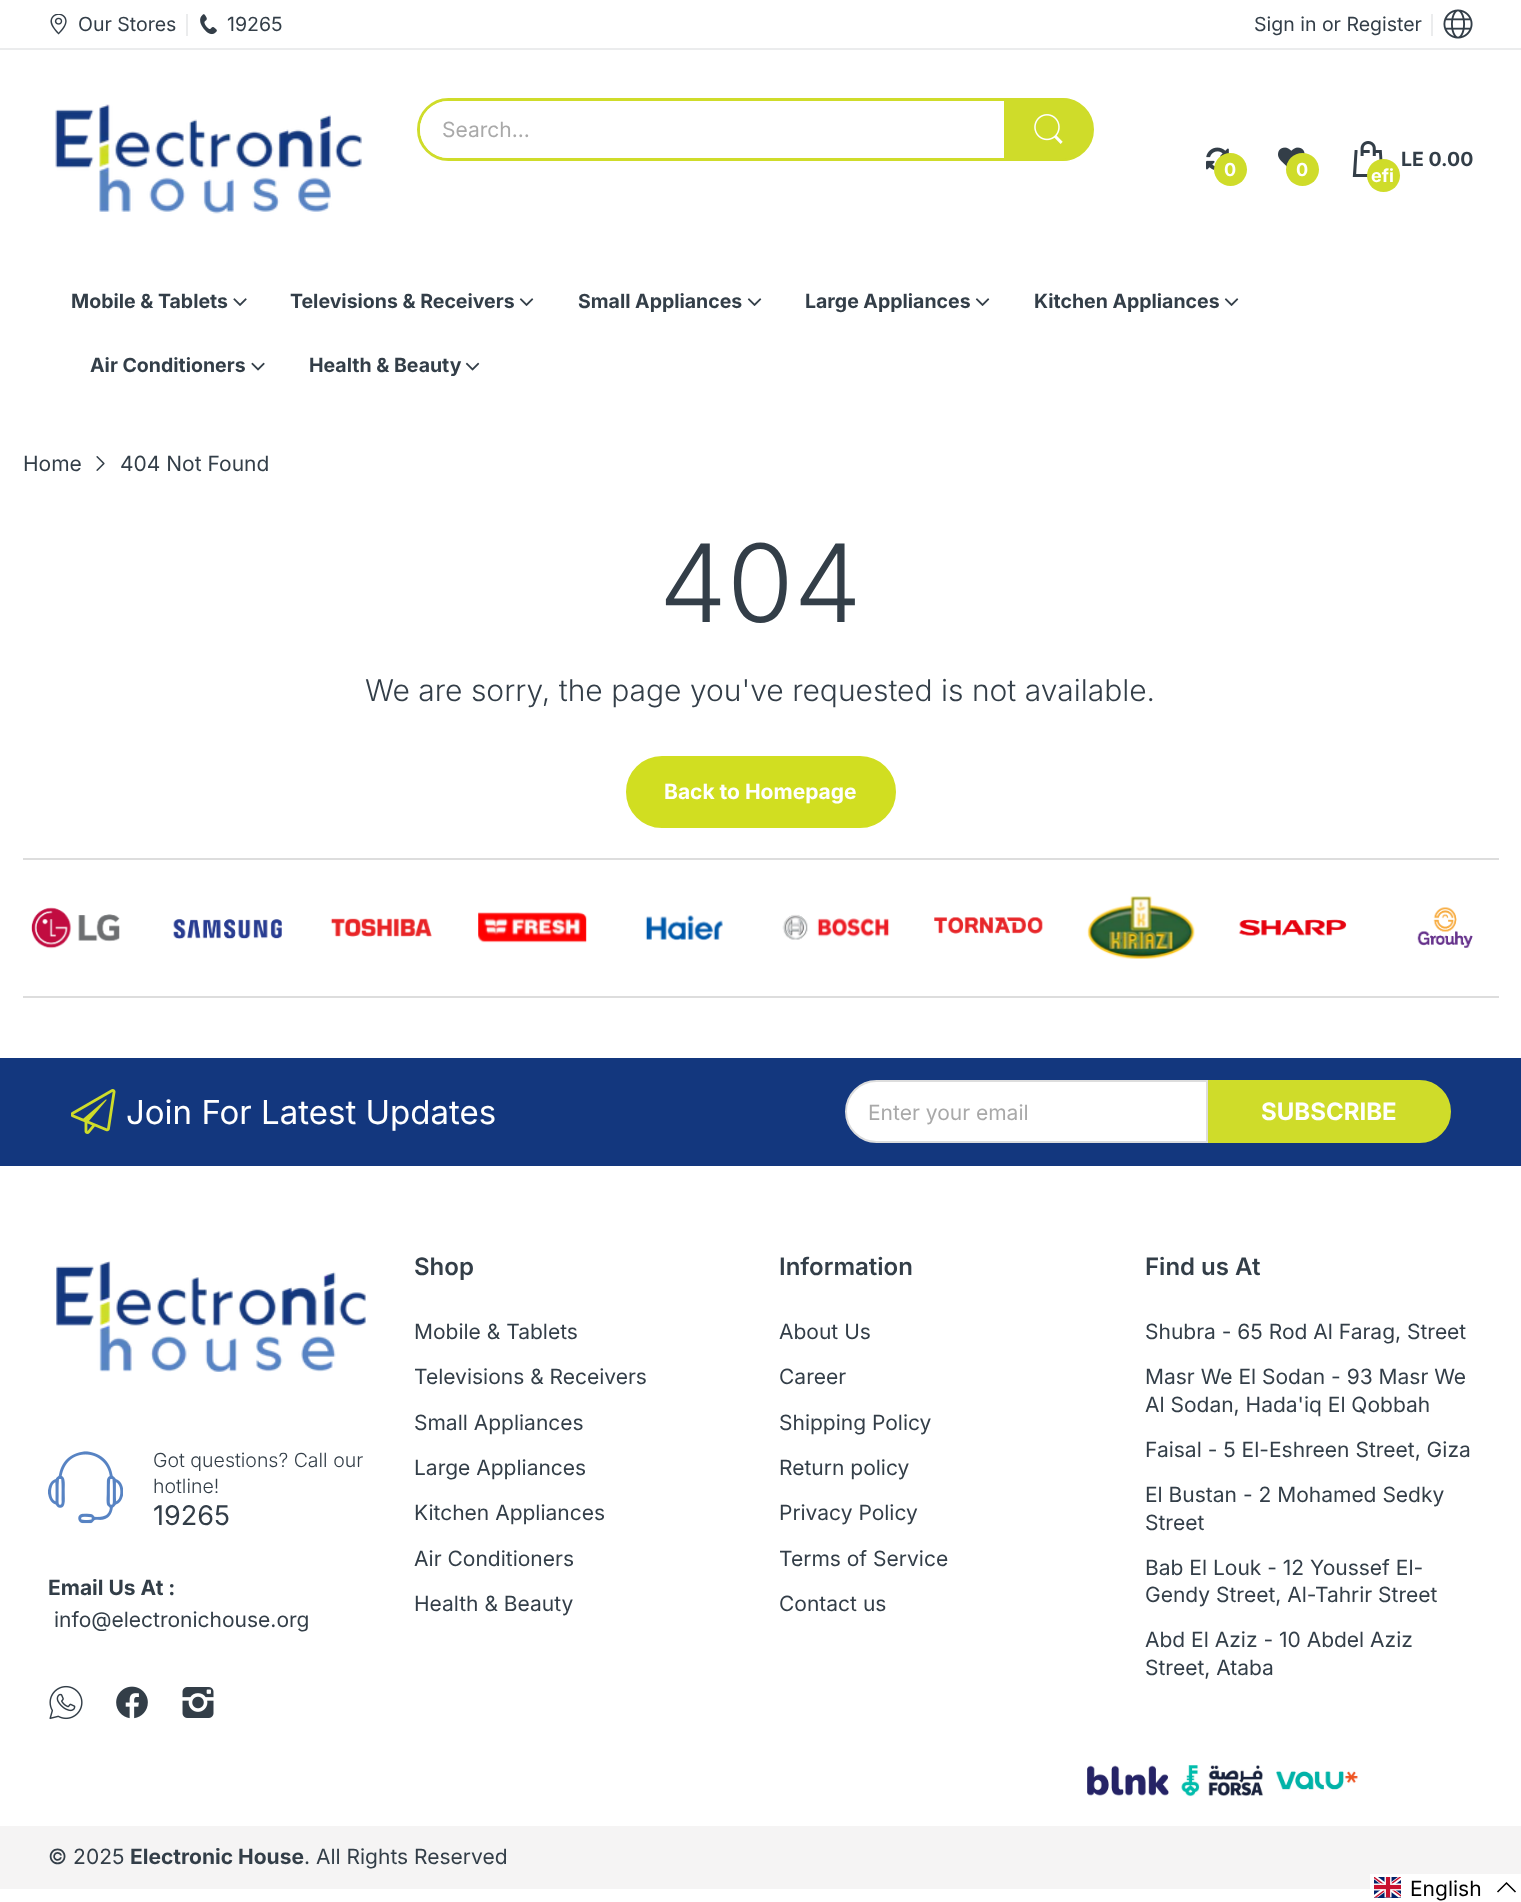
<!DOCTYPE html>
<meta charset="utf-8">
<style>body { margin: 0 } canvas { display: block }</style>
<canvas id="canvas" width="1521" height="1902"></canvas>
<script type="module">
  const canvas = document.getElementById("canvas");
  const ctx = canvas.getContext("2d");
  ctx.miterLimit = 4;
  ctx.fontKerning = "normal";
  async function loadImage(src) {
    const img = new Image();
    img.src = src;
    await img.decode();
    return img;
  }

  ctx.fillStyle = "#ffffff";
  ctx.fillRect(0, 0, 1521, 1902);
  ctx.fillStyle = "#ebeced";
  ctx.fillRect(0, 48, 1521, 2);
  ctx.drawImage(await loadImage("img1.png"), 50, 14, 17, 21);
  ctx.font = "19.5px Inter";
  ctx.fillStyle = "#333e48";
  ctx.fillText("Our Stores", 78, 31);
  ctx.fillStyle = "#ebeced";
  ctx.fillRect(186, 14, 2, 22);
  ctx.drawImage(await loadImage("img2.png"), 200, 14, 17, 21);
  ctx.fillStyle = "#333e48";
  ctx.fillText("19265", 227, 31);
  ctx.fillText("Sign in or Register", 1254, 31);
  ctx.fillStyle = "#ebeced";
  ctx.fillRect(1431, 14, 2, 22);
  ctx.drawImage(await loadImage("img3.png"), 1443, 9, 30, 30);
  ctx.drawImage(await loadImage("img4.png"), 55, 104, 307, 110);
  ctx.beginPath();
  ctx.roundRect(418.5, 99.5, 672, 60, 30);
  ctx.strokeStyle = "#cfdc2a";
  ctx.lineWidth = 3;
  ctx.stroke();
  ctx.fillStyle = "#ffffff";
  ctx.beginPath();
  ctx.roundRect(420, 101, 669, 57, 28.5);
  ctx.fill();
  ctx.font = "21px Inter";
  ctx.fillStyle = "#a9a9a9";
  ctx.fillText("Search...", 442, 137);
  ctx.fillStyle = "#cfdc2a";
  ctx.beginPath();
  ctx.roundRect(1005, 99, 88, 61, [0, 30.5, 30.5, 0]);
  ctx.fill();
  ctx.lineWidth = 2;
  ctx.stroke();
  ctx.drawImage(await loadImage("img5.png"), 1034, 114, 29, 30);
  ctx.drawImage(await loadImage("img6.png"), 1206, 147, 23, 24);
  ctx.beginPath();
  ctx.arc(1230.5, 169.5, 16.5, 0, Math.PI * 2);
  ctx.fill();
  ctx.font = "bold 18px Inter";
  ctx.fillStyle = "#ffffff";
  ctx.fillText("0", 1224, 176);
  ctx.drawImage(await loadImage("img7.png"), 1278, 147, 27, 20);
  ctx.fillStyle = "#cfdc2a";
  ctx.beginPath();
  ctx.arc(1302.5, 169.5, 16.5, 0, Math.PI * 2);
  ctx.fill();
  ctx.fillStyle = "#ffffff";
  ctx.fillText("0", 1296, 176);
  ctx.font = "bold 19.5px Inter";
  ctx.fillStyle = "#333e48";
  ctx.fillText("LE 0.00", 1401, 166);
  ctx.drawImage(await loadImage("img8.png"), 1352, 141, 31, 36);
  ctx.fillStyle = "#cfdc2a";
  ctx.beginPath();
  ctx.arc(1383.5, 175.5, 16.5, 0, Math.PI * 2);
  ctx.fill();
  ctx.font = "bold 18px Inter";
  ctx.fillStyle = "#ffffff";
  ctx.fillText("efi", 1371, 182);
  ctx.font = "bold 19.5px Inter";
  ctx.fillStyle = "#333e48";
  ctx.fillText("Mobile & Tablets", 71, 308);
  ctx.drawImage(await loadImage("img9.png"), 233, 298, 14, 8);
  ctx.fillText("Televisions & Receivers", 290, 308);
  ctx.drawImage(await loadImage("img10.png"), 519, 298, 15, 8);
  ctx.fillText("Small Appliances", 578, 308);
  ctx.drawImage(await loadImage("img10.png"), 747, 298, 15, 8);
  ctx.fillText("Large Appliances", 805, 308);
  ctx.drawImage(await loadImage("img10.png"), 975, 298, 15, 8);
  ctx.fillText("Kitchen Appliances", 1034, 308);
  ctx.drawImage(await loadImage("img10.png"), 1224, 298, 15, 8);
  ctx.fillText("Air Conditioners", 90, 372);
  ctx.drawImage(await loadImage("img11.png"), 251, 362, 14, 9);
  ctx.fillText("Health & Beauty", 309, 372);
  ctx.drawImage(await loadImage("img12.png"), 465, 362, 15, 9);
  ctx.font = "21px Inter";
  ctx.fillText("Home", 23, 471);
  ctx.drawImage(await loadImage("img13.png"), 96, 456, 9, 15);
  ctx.fillText("404 Not Found", 120, 471);
  ctx.font = "300 108px Inter";
  ctx.fillText("404", 659, 622);
  ctx.font = "300 30px Inter";
  ctx.fillText("We are sorry, the page you've requested is not available.", 365, 701);
  ctx.fillStyle = "#d1de21";
  ctx.beginPath();
  ctx.roundRect(627, 757, 268, 70, 35);
  ctx.fill();
  ctx.strokeStyle = "#d1de21";
  ctx.stroke();
  ctx.font = "bold 21px Inter";
  ctx.fillStyle = "#ffffff";
  ctx.fillText("Back to Homepage", 664, 799);
  ctx.fillStyle = "#dddddd";
  ctx.fillRect(23, 858, 1476, 2);
  ctx.fillRect(23, 996, 1476, 2);
  ctx.drawImage(await loadImage("img14.png"), 31, 907, 89, 42);
  ctx.drawImage(await loadImage("img15.png"), 173, 919, 109, 20);
  ctx.drawImage(await loadImage("img16.png"), 330, 918, 102, 19);
  ctx.drawImage(await loadImage("img17.png"), 478, 912, 109, 31);
  ctx.drawImage(await loadImage("img18.png"), 645, 915, 78, 26);
  ctx.drawImage(await loadImage("img19.png"), 782, 914, 108, 26);
  ctx.drawImage(await loadImage("img20.png"), 934, 917, 109, 17);
  ctx.drawImage(await loadImage("img21.png"), 1087, 896, 108, 63);
  ctx.drawImage(await loadImage("img22.png"), 1238, 919, 109, 17);
  ctx.drawImage(await loadImage("img23.png"), 1417, 907, 56, 41);
  ctx.fillStyle = "#13377e";
  ctx.fillRect(0, 1058, 1521, 108);
  ctx.drawImage(await loadImage("img24.png"), 71, 1089, 45, 45);
  ctx.font = "33px Inter";
  ctx.fillStyle = "#ffffff";
  ctx.fillText("Join For Latest Updates", 126, 1124);
  ctx.beginPath();
  ctx.roundRect(846, 1081, 361, 61, [30.5, 0, 0, 30.5]);
  ctx.fill();
  ctx.strokeStyle = "#dddddd";
  ctx.stroke();
  ctx.font = "21px Inter";
  ctx.fillStyle = "#a9a9a9";
  ctx.fillText("Enter your email", 868, 1120);
  ctx.fillStyle = "#cfdc2a";
  ctx.beginPath();
  ctx.roundRect(1209, 1081, 241, 61, [0, 30.5, 30.5, 0]);
  ctx.fill();
  ctx.strokeStyle = "#cfdc2a";
  ctx.stroke();
  ctx.font = "bold 24px Inter";
  ctx.fillStyle = "#ffffff";
  ctx.fillText("SUBSCRIBE", 1261, 1120);
  ctx.drawImage(await loadImage("img25.png"), 56, 1261, 310, 111);
  ctx.drawImage(await loadImage("img26.png"), 48, 1451, 75, 73);
  ctx.font = "300 19.5px Inter";
  ctx.fillStyle = "#333e48";
  ctx.fillText("Got questions? Call our", 153, 1467);
  ctx.fillText("hotline!", 153, 1493);
  ctx.font = "27px Inter";
  ctx.fillText("19265", 153, 1525);
  ctx.font = "bold 21px Inter";
  ctx.fillText("Email Us At :", 48, 1595);
  ctx.font = "21px Inter";
  ctx.fillText("info@electronichouse.org", 54, 1627);
  ctx.drawImage(await loadImage("img27.png"), 49, 1685, 34, 35);
  ctx.drawImage(await loadImage("img28.png"), 116, 1686, 32, 33);
  ctx.drawImage(await loadImage("img29.png"), 182, 1687, 32, 31);
  ctx.font = "600 24px Inter";
  ctx.fillText("Shop", 414, 1275);
  ctx.font = "21px Inter";
  ctx.fillText("Mobile & Tablets", 414, 1339);
  ctx.fillText("Televisions & Receivers", 414, 1384);
  ctx.fillText("Small Appliances", 414, 1430);
  ctx.fillText("Large Appliances", 414, 1475);
  ctx.fillText("Kitchen Appliances", 414, 1520);
  ctx.fillText("Air Conditioners", 414, 1566);
  ctx.fillText("Health & Beauty", 414, 1611);
  ctx.font = "600 24px Inter";
  ctx.fillText("Information", 779, 1275);
  ctx.font = "21px Inter";
  ctx.fillText("About Us", 779, 1339);
  ctx.fillText("Career", 779, 1384);
  ctx.fillText("Shipping Policy", 779, 1430);
  ctx.fillText("Return policy", 779, 1475);
  ctx.fillText("Privacy Policy", 779, 1520);
  ctx.fillText("Terms of Service", 779, 1566);
  ctx.fillText("Contact us", 779, 1611);
  ctx.font = "600 24px Inter";
  ctx.fillText("Find us At", 1145, 1275);
  ctx.font = "21px Inter";
  ctx.fillText("Shubra - 65 Rod Al Farag, Street", 1145, 1339);
  ctx.fillText("Masr We El Sodan - 93 Masr We", 1145, 1384);
  ctx.fillText("Al Sodan, Hada'iq El Qobbah", 1145, 1412);
  ctx.fillText("Faisal - 5 El-Eshreen Street, Giza", 1145, 1457);
  ctx.fillText("El Bustan - 2 Mohamed Sedky", 1145, 1502);
  ctx.fillText("Street", 1145, 1530);
  ctx.fillText("Bab El Louk - 12 Youssef El-", 1145, 1575);
  ctx.fillText("Gendy Street, Al-Tahrir Street", 1145, 1602);
  ctx.fillText("Abd El Aziz - 10 Abdel Aziz", 1145, 1647);
  ctx.fillText("Street, Ataba", 1145, 1675);
  ctx.drawImage(await loadImage("img30.png"), 1087, 1765, 271, 32);
  ctx.fillStyle = "#f5f4f4";
  ctx.fillRect(0, 1826, 1521, 63);
  ctx.fillStyle = "#333e48";
  ctx.fillText("© 2025", 48, 1864);
  ctx.font = "bold 21px Inter";
  ctx.fillText("Electronic House", 130, 1864);
  ctx.font = "21px Inter";
  ctx.fillText(". All Rights Reserved", 304, 1864);
  ctx.fillStyle = "#ffffff";
  ctx.fillRect(1370, 1874, 151, 15);
  ctx.drawImage(await loadImage("img31.png"), 1374, 1877, 27, 21);
  ctx.fillStyle = "#000000";
  ctx.fillText("English", 1410, 1896);
  ctx.beginPath();
  ctx.moveTo(1515.5, 1892);
  ctx.lineTo(1506.5, 1883);
  ctx.lineTo(1497.5, 1892);
  ctx.strokeStyle = "#000000";
  ctx.lineWidth = 1.5;
  ctx.stroke();
</script>
